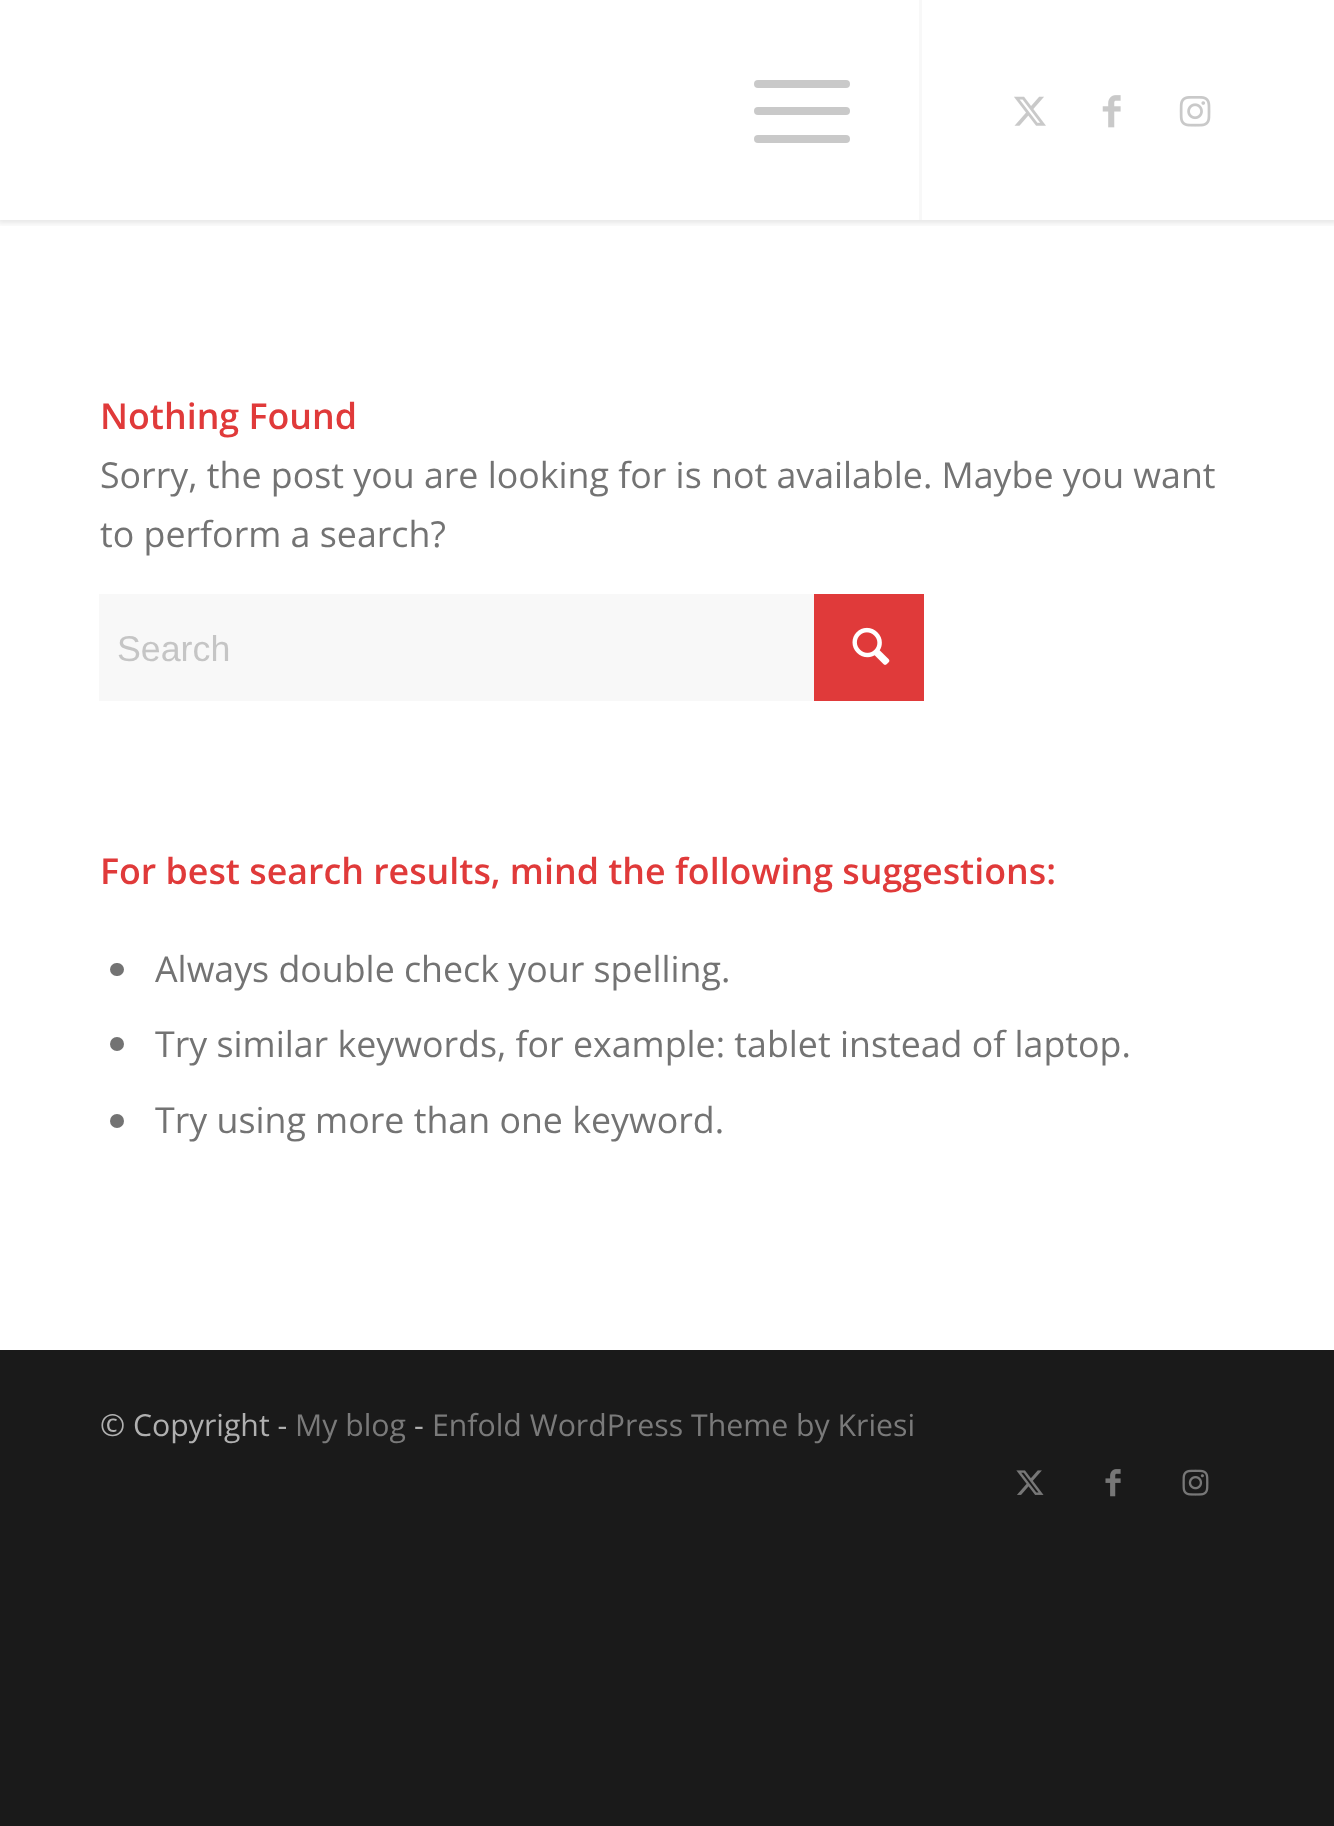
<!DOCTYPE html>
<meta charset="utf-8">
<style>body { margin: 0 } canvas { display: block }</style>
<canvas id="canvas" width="1334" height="1826"></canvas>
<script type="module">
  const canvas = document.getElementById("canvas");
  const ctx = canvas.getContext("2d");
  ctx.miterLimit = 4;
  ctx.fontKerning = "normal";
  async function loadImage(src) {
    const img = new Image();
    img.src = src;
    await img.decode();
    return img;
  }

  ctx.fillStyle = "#1a1a1a";
  ctx.fillRect(0, 0, 1334, 1826);
  ctx.fillStyle = "#ffffff";
  ctx.fillRect(0, 0, 1334, 1350);
  ctx.save();
  ctx.beginPath();
  ctx.rect(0, 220, 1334, 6);
  ctx.clip();
  ctx.fillStyle = "rgba(0, 0, 0, 0.1)";
  ctx.filter = "blur(3px)";
  ctx.beginPath();
  ctx.rect(-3, -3, 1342, 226);
  ctx.fill();
  ctx.filter = "none";
  ctx.restore();
  ctx.fillStyle = "#f8f8f8";
  ctx.fillRect(919, 0, 3, 220);
  ctx.fillStyle = "#c9c9c9";
  ctx.beginPath();
  ctx.roundRect(754, 107, 96, 8, 4);
  ctx.fill();
  ctx.beginPath();
  ctx.roundRect(754, 80, 96, 8, 4);
  ctx.fill();
  ctx.beginPath();
  ctx.roundRect(754, 135, 96, 8, 4);
  ctx.fill();
  ctx.drawImage(await loadImage("img1.png"), 1014, 96, 32, 30);
  ctx.drawImage(await loadImage("img2.png"), 1102, 95, 19, 33);
  ctx.drawImage(await loadImage("img3.png"), 1179, 96, 32, 31);
  ctx.font = "600 35.75px Open Sans";
  ctx.fillStyle = "#e03a3a";
  ctx.fillText("Nothing Found", 100, 429);
  ctx.font = "35.75px Open Sans";
  ctx.fillStyle = "#737373";
  ctx.fillText("Sorry, the post you are looking for is not available. Maybe you want", 100, 488);
  ctx.fillText("to perform a search?", 100, 547);
  ctx.fillStyle = "#f8f8f8";
  ctx.fillRect(99, 594, 715, 107);
  ctx.font = "35.75px Liberation Sans";
  ctx.fillStyle = "#c5c5c5";
  ctx.fillText("Search", 117, 661);
  ctx.fillStyle = "#e03a3a";
  ctx.fillRect(814, 594, 110, 107);
  ctx.drawImage(await loadImage("img4.png"), 852, 627, 38, 38);
  ctx.font = "600 35.75px Open Sans";
  ctx.fillText("For best search results, mind the following suggestions:", 100, 884);
  ctx.fillStyle = "#737373";
  ctx.beginPath();
  ctx.roundRect(110, 963, 14, 13, 6.5);
  ctx.fill();
  ctx.font = "35.75px Open Sans";
  ctx.fillText("Always double check your spelling.", 155, 982);
  ctx.beginPath();
  ctx.arc(117, 1044, 7, 0, Math.PI * 2);
  ctx.fill();
  ctx.fillText("Try similar keywords, for example: tablet instead of laptop.", 155, 1057);
  ctx.beginPath();
  ctx.arc(117, 1121, 7, 0, Math.PI * 2);
  ctx.fill();
  ctx.fillText("Try using more than one keyword.", 155, 1133);
  ctx.font = "30.25px Open Sans";
  ctx.fillStyle = "#b0b0b0";
  ctx.fillText("© Copyright -", 100, 1436);
  ctx.fillStyle = "#7a7a7a";
  ctx.fillText("My blog", 295, 1436);
  ctx.fillStyle = "#b0b0b0";
  ctx.fillText("-", 414, 1436);
  ctx.fillStyle = "#7a7a7a";
  ctx.fillText("Enfold WordPress Theme by Kriesi", 432, 1436);
  ctx.drawImage(await loadImage("img5.png"), 1016, 1470, 28, 25);
  ctx.drawImage(await loadImage("img6.png"), 1105, 1469, 16, 28);
  ctx.drawImage(await loadImage("img7.png"), 1182, 1469, 27, 27);
</script>
